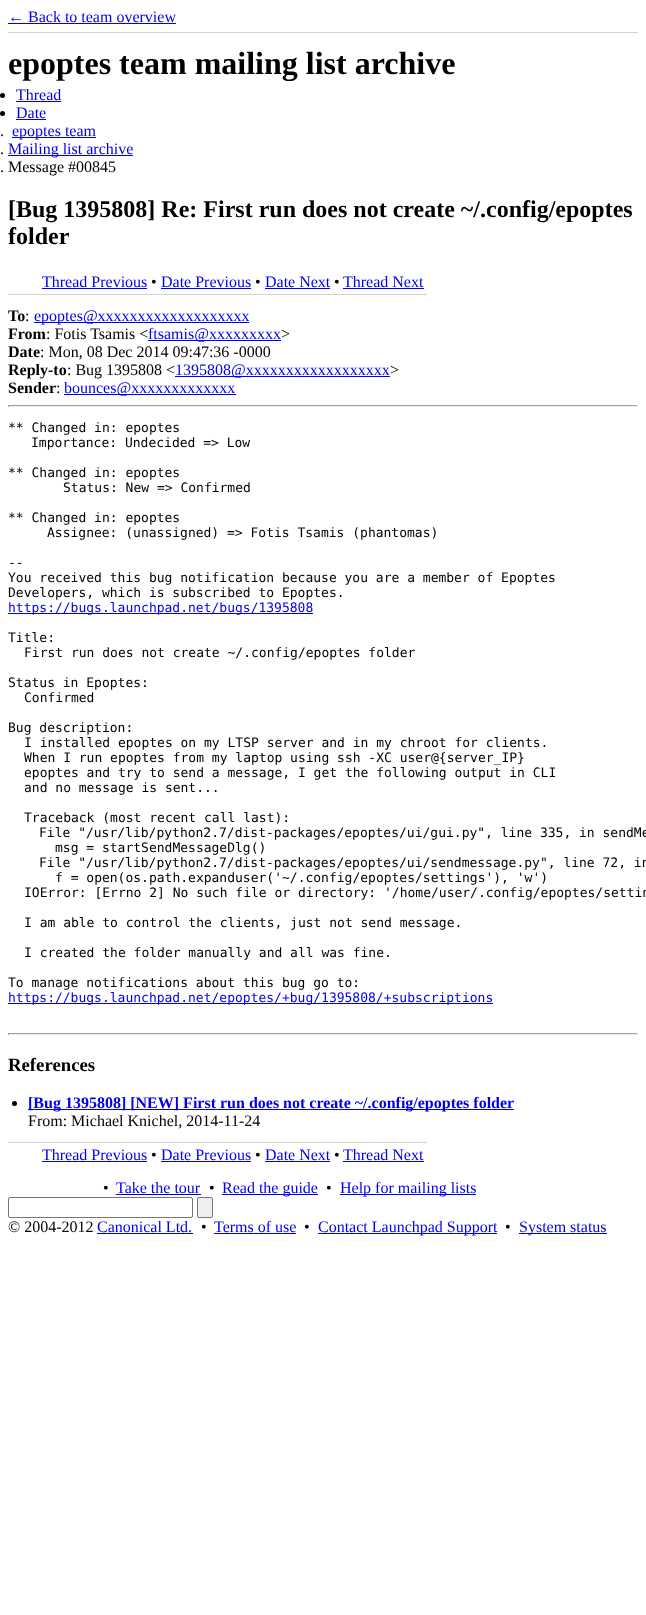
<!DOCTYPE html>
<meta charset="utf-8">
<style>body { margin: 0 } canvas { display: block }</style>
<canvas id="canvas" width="646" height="1615"></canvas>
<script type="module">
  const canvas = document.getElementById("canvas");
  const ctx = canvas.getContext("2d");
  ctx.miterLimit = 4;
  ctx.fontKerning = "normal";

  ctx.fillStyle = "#ffffff";
  ctx.fillRect(0, 0, 646, 1615);
  ctx.fillStyle = "#d2d2d2";
  ctx.fillRect(8, 32, 630, 1);
  ctx.font = "16px Liberation Serif";
  ctx.fillStyle = "#0000ee";
  ctx.fillText("← Back to team overview", 8, 22);
  ctx.fillRect(8, 23, 168, 1);
  ctx.font = "bold 32px Liberation Serif";
  ctx.fillStyle = "#000000";
  ctx.fillText("epoptes team mailing list archive", 8, 74);
  ctx.beginPath();
  ctx.arc(2.5, 95.5, 2.5, 0, Math.PI * 2);
  ctx.fill();
  ctx.font = "16px Liberation Serif";
  ctx.fillStyle = "#0000ee";
  ctx.fillText("Thread", 16, 100);
  ctx.fillRect(16, 101, 45, 1);
  ctx.fillStyle = "#000000";
  ctx.beginPath();
  ctx.arc(2.5, 113.5, 2.5, 0, Math.PI * 2);
  ctx.fill();
  ctx.fillStyle = "#0000ee";
  ctx.fillText("Date", 16, 118);
  ctx.fillRect(16, 119, 30, 1);
  ctx.fillStyle = "#000000";
  ctx.fillText(".", 0, 136);
  ctx.fillStyle = "#0000ee";
  ctx.fillRect(12, 137, 84, 1);
  ctx.fillText("epoptes team", 12, 136);
  ctx.fillStyle = "#000000";
  ctx.fillText(".", 0, 154);
  ctx.fillStyle = "#0000ee";
  ctx.fillRect(8, 155, 125, 1);
  ctx.fillText("Mailing list archive", 8, 154);
  ctx.fillStyle = "#000000";
  ctx.fillText(". Message #00845", 0, 172);
  ctx.font = "bold 24px Liberation Serif";
  ctx.fillText("[Bug 1395808] Re: First run does not create ~/.config/epoptes", 8, 217);
  ctx.fillText("folder", 8, 244);
  ctx.fillStyle = "#d2d2d2";
  ctx.fillRect(8, 294, 419, 1);
  ctx.font = "16px Liberation Serif";
  ctx.fillStyle = "#0000ee";
  ctx.fillText("Thread Previous", 42, 287);
  ctx.fillRect(42, 288, 105, 1);
  ctx.fillStyle = "#000000";
  ctx.fillText("•", 151, 287);
  ctx.fillStyle = "#0000ee";
  ctx.fillText("Date Previous", 161, 287);
  ctx.fillRect(161, 288, 90, 1);
  ctx.fillStyle = "#000000";
  ctx.fillText("•", 255, 287);
  ctx.fillStyle = "#0000ee";
  ctx.fillText("Date Next", 265, 287);
  ctx.fillRect(265, 288, 65, 1);
  ctx.fillStyle = "#000000";
  ctx.fillText("•", 334, 287);
  ctx.fillStyle = "#0000ee";
  ctx.fillText("Thread Next", 343, 287);
  ctx.fillRect(343, 288, 81, 1);
  ctx.font = "bold 16px Liberation Serif";
  ctx.fillStyle = "#000000";
  ctx.fillText("To", 8, 321);
  ctx.font = "16px Liberation Serif";
  ctx.fillText(":", 25, 321);
  ctx.fillStyle = "#0000ee";
  ctx.fillRect(34, 322, 215, 1);
  ctx.fillText("epoptes@xxxxxxxxxxxxxxxxxxx", 34, 321);
  ctx.font = "bold 16px Liberation Serif";
  ctx.fillStyle = "#000000";
  ctx.fillText("From", 8, 339);
  ctx.font = "16px Liberation Serif";
  ctx.fillText(": Fotis Tsamis <", 46, 339);
  ctx.fillStyle = "#0000ee";
  ctx.fillRect(148, 340, 133, 1);
  ctx.fillText("ftsamis@xxxxxxxxx", 148, 339);
  ctx.fillStyle = "#000000";
  ctx.fillText(">", 281, 339);
  ctx.font = "bold 16px Liberation Serif";
  ctx.fillText("Date", 8, 357);
  ctx.font = "16px Liberation Serif";
  ctx.fillText(": Mon, 08 Dec 2014 09:47:36 -0000", 40, 357);
  ctx.font = "bold 16px Liberation Serif";
  ctx.fillText("Reply-to", 8, 375);
  ctx.font = "16px Liberation Serif";
  ctx.fillText(": Bug 1395808 <", 67, 375);
  ctx.fillStyle = "#0000ee";
  ctx.fillRect(175, 376, 215, 1);
  ctx.fillText("1395808@xxxxxxxxxxxxxxxxxx", 175, 375);
  ctx.fillStyle = "#000000";
  ctx.fillText(">", 390, 375);
  ctx.font = "bold 16px Liberation Serif";
  ctx.fillText("Sender", 8, 393);
  ctx.font = "16px Liberation Serif";
  ctx.fillText(":", 56, 393);
  ctx.fillStyle = "#0000ee";
  ctx.fillRect(64, 394, 172, 1);
  ctx.fillText("bounces@xxxxxxxxxxxxx", 64, 393);
  ctx.fillStyle = "#9f9f9f";
  ctx.fillRect(8, 405, 630, 1);
  ctx.fillStyle = "#eeeeee";
  ctx.fillRect(637, 405, 1, 2);
  ctx.fillRect(8, 406, 630, 1);
  ctx.fillStyle = "#9f9f9f";
  ctx.fillRect(8, 405, 1, 2);
  ctx.font = "13px DejaVu Sans Mono";
  ctx.fillStyle = "#000000";
  ctx.fillText("** Changed in: epoptes", 8, 432);
  ctx.fillText("Importance: Undecided => Low", 31, 447);
  ctx.fillText("** Changed in: epoptes", 8, 477);
  ctx.fillText("Status: New => Confirmed", 63, 492);
  ctx.fillText("** Changed in: epoptes", 8, 522);
  ctx.fillText("Assignee: (unassigned) => Fotis Tsamis (phantomas)", 47, 537);
  ctx.fillText("--", 8, 567);
  ctx.fillText("You received this bug notification because you are a member of Epoptes", 8, 582);
  ctx.fillText("Developers, which is subscribed to Epoptes.", 8, 597);
  ctx.fillStyle = "#0000ee";
  ctx.fillRect(8, 613, 305, 1);
  ctx.fillText("https://bugs.launchpad.net/bugs/1395808", 8, 612);
  ctx.fillStyle = "#000000";
  ctx.fillText("Title:", 8, 642);
  ctx.fillText("First run does not create ~/.config/epoptes folder", 24, 657);
  ctx.fillText("Status in Epoptes:", 8, 687);
  ctx.fillText("Confirmed", 24, 702);
  ctx.fillText("Bug description:", 8, 732);
  ctx.fillText("I installed epoptes on my LTSP server and in my chroot for clients.", 24, 747);
  ctx.fillText("When I run epoptes from my laptop using ssh -XC user@{server_IP}", 24, 762);
  ctx.fillText("epoptes and try to send a message, I get the following output in CLI", 24, 777);
  ctx.fillText("and no message is sent...", 24, 792);
  ctx.fillText("Traceback (most recent call last):", 24, 822);
  ctx.fillText("File \"/usr/lib/python2.7/dist-packages/epoptes/ui/gui.py\", line 335, in sendMe", 39, 837);
  ctx.fillText("msg = startSendMessageDlg()", 55, 852);
  ctx.fillText("File \"/usr/lib/python2.7/dist-packages/epoptes/ui/sendmessage.py\", line 72, in", 39, 867);
  ctx.fillText("f = open(os.path.expanduser('~/.config/epoptes/settings'), 'w')", 55, 882);
  ctx.fillText("IOError: [Errno 2] No such file or directory: '/home/user/.config/epoptes/settin", 24, 897);
  ctx.fillText("I am able to control the clients, just not send message.", 24, 927);
  ctx.fillText("I created the folder manually and all was fine.", 24, 957);
  ctx.fillText("To manage notifications about this bug go to:", 8, 987);
  ctx.fillStyle = "#0000ee";
  ctx.fillRect(8, 1003, 485, 1);
  ctx.fillText("https://bugs.launchpad.net/epoptes/+bug/1395808/+subscriptions", 8, 1002);
  ctx.fillStyle = "#9f9f9f";
  ctx.fillRect(8, 1033, 630, 1);
  ctx.fillStyle = "#eeeeee";
  ctx.fillRect(637, 1033, 1, 2);
  ctx.fillRect(8, 1034, 630, 1);
  ctx.fillStyle = "#9f9f9f";
  ctx.fillRect(8, 1033, 1, 2);
  ctx.font = "bold 18.75px Liberation Serif";
  ctx.fillStyle = "#000000";
  ctx.fillText("References", 8, 1071);
  ctx.beginPath();
  ctx.arc(14.5, 1103.5, 2.5, 0, Math.PI * 2);
  ctx.fill();
  ctx.fillStyle = "#0000ee";
  ctx.fillRect(28, 1109, 486, 1);
  ctx.font = "bold 16px Liberation Serif";
  ctx.fillText("[Bug 1395808] [NEW] First run does not create ~/.config/epoptes folder", 28, 1108);
  ctx.font = "16px Liberation Serif";
  ctx.fillStyle = "#000000";
  ctx.fillText("From: Michael Knichel, 2014-11-24", 28, 1126);
  ctx.fillStyle = "#d2d2d2";
  ctx.fillRect(8, 1142, 419, 1);
  ctx.fillStyle = "#0000ee";
  ctx.fillText("Thread Previous", 42, 1160);
  ctx.fillRect(42, 1161, 105, 1);
  ctx.fillStyle = "#000000";
  ctx.fillText("•", 151, 1160);
  ctx.fillStyle = "#0000ee";
  ctx.fillText("Date Previous", 161, 1160);
  ctx.fillRect(161, 1161, 90, 1);
  ctx.fillStyle = "#000000";
  ctx.fillText("•", 255, 1160);
  ctx.fillStyle = "#0000ee";
  ctx.fillText("Date Next", 265, 1160);
  ctx.fillRect(265, 1161, 65, 1);
  ctx.fillStyle = "#000000";
  ctx.fillText("•", 334, 1160);
  ctx.fillStyle = "#0000ee";
  ctx.fillText("Thread Next", 343, 1160);
  ctx.fillRect(343, 1161, 81, 1);
  ctx.fillStyle = "#000000";
  ctx.fillText("•", 103, 1193);
  ctx.fillStyle = "#0000ee";
  ctx.fillText("Take the tour", 116, 1193);
  ctx.fillRect(116, 1194, 85, 1);
  ctx.fillStyle = "#000000";
  ctx.fillText("•", 209, 1193);
  ctx.fillStyle = "#0000ee";
  ctx.fillRect(222, 1194, 96, 1);
  ctx.fillText("Read the guide", 222, 1193);
  ctx.fillStyle = "#000000";
  ctx.fillText("•", 326, 1193);
  ctx.fillStyle = "#0000ee";
  ctx.fillRect(340, 1194, 136, 1);
  ctx.fillText("Help for mailing lists", 340, 1193);
  ctx.beginPath();
  ctx.roundRect(8.5, 1197.5, 184, 20, 1.5);
  ctx.strokeStyle = "#767676";
  ctx.stroke();
  ctx.fillStyle = "#efefef";
  ctx.beginPath();
  ctx.roundRect(197.5, 1197.5, 15, 20, 1.5);
  ctx.fill();
  ctx.stroke();
  ctx.fillStyle = "#000000";
  ctx.fillText("© 2004-2012", 8, 1232);
  ctx.fillStyle = "#0000ee";
  ctx.fillText("Canonical Ltd.", 97, 1232);
  ctx.fillRect(97, 1233, 96, 1);
  ctx.fillStyle = "#000000";
  ctx.fillText("•", 201, 1232);
  ctx.fillStyle = "#0000ee";
  ctx.fillText("Terms of use", 214, 1232);
  ctx.fillRect(214, 1233, 82, 1);
  ctx.fillStyle = "#000000";
  ctx.fillText("•", 304, 1232);
  ctx.fillStyle = "#0000ee";
  ctx.fillRect(318, 1233, 179, 1);
  ctx.fillText("Contact Launchpad Support", 318, 1232);
  ctx.fillStyle = "#000000";
  ctx.fillText("•", 505, 1232);
  ctx.fillStyle = "#0000ee";
  ctx.fillRect(519, 1233, 88, 1);
  ctx.fillText("System status", 519, 1232);
</script>
